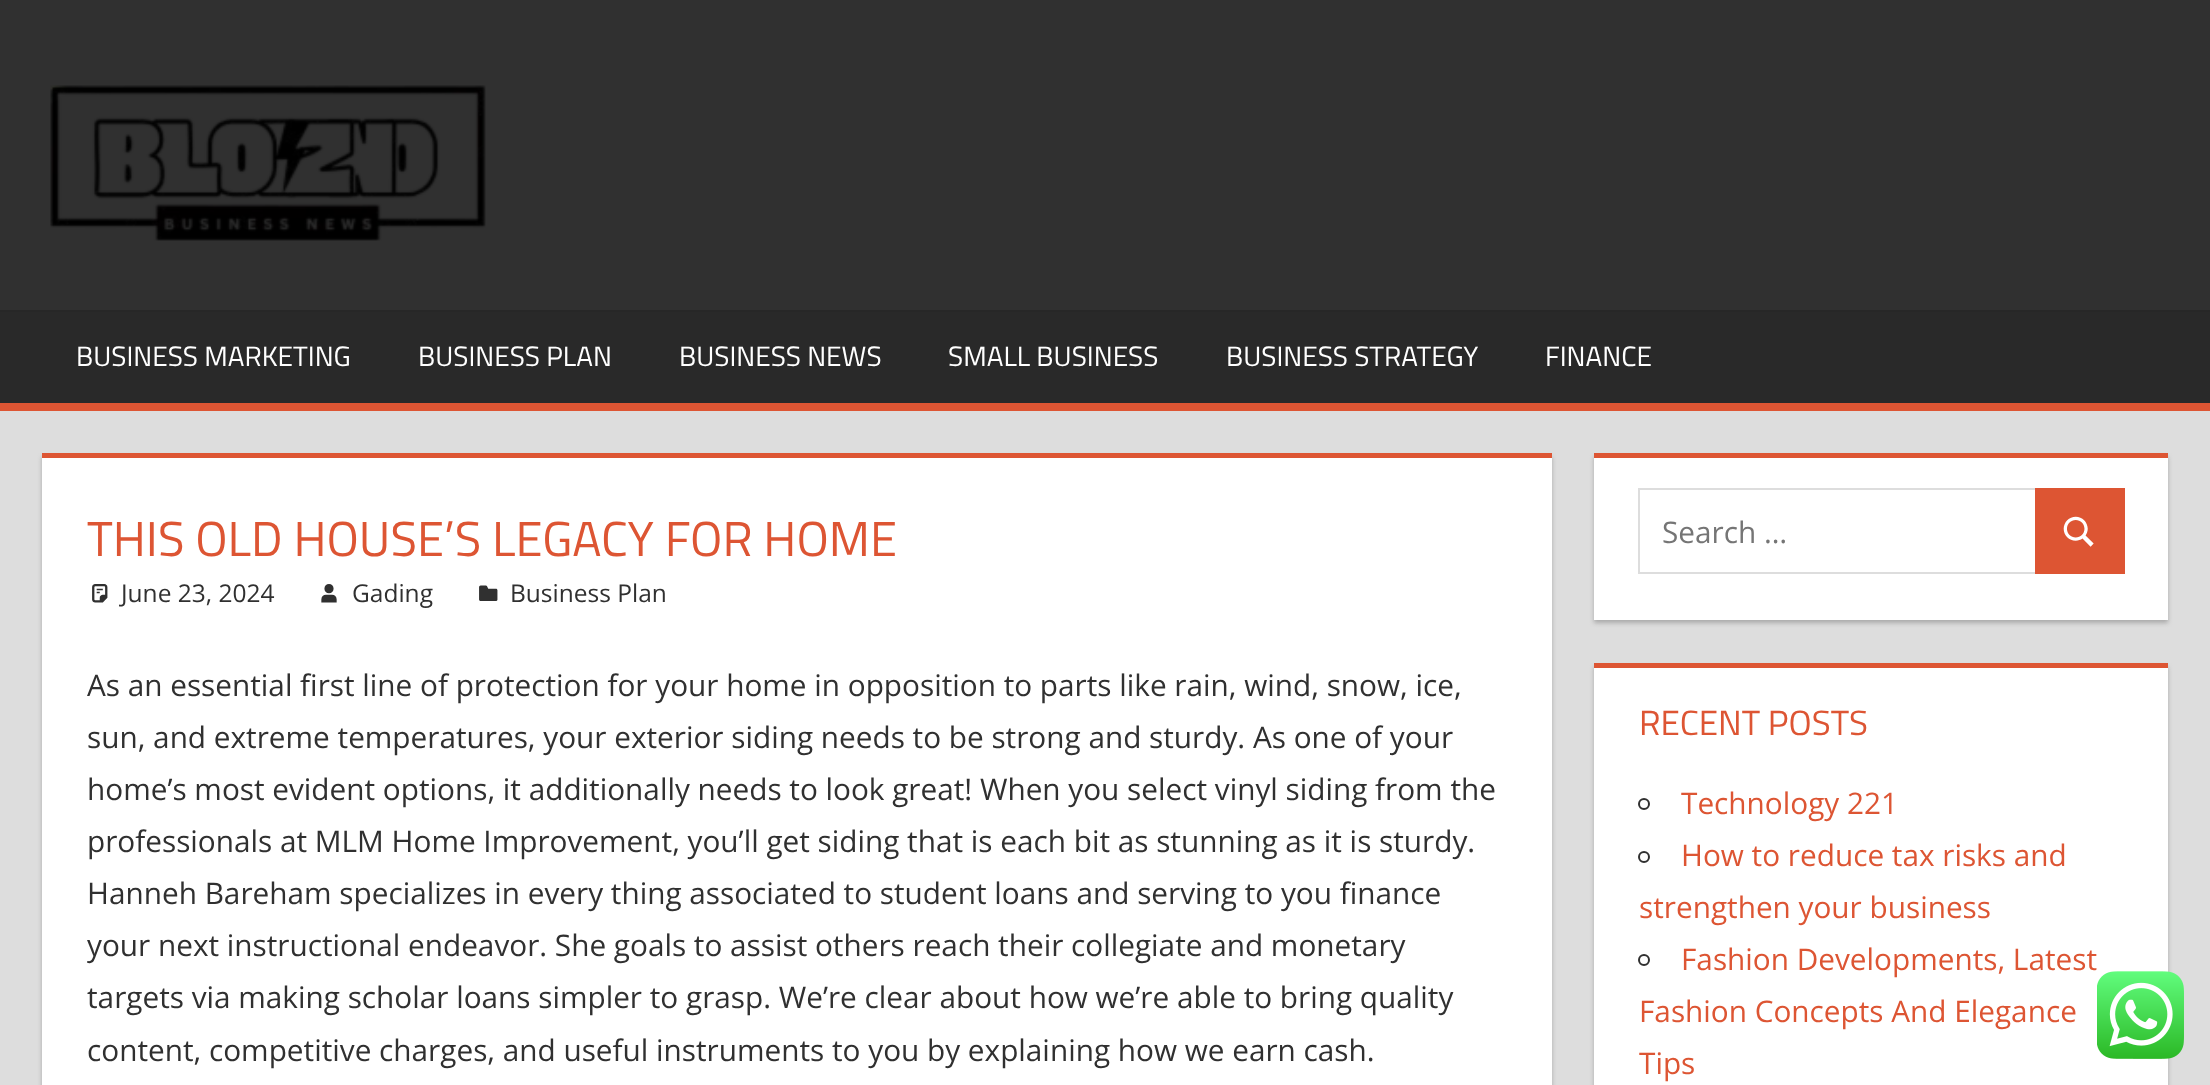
<!DOCTYPE html>
<meta charset="utf-8">
<style>body { margin: 0 } canvas { display: block }</style>
<canvas id="canvas" width="2210" height="1085"></canvas>
<script type="module">
  const canvas = document.getElementById("canvas");
  const ctx = canvas.getContext("2d");
  ctx.miterLimit = 4;
  ctx.fontKerning = "normal";
  async function loadImage(src) {
    const img = new Image();
    img.src = src;
    await img.decode();
    return img;
  }

  ctx.fillStyle = "#dddddd";
  ctx.fillRect(0, 0, 2210, 1085);
  ctx.fillStyle = "#303030";
  ctx.fillRect(0, 0, 2210, 310);
  ctx.drawImage(await loadImage("img1.png"), 50, 85, 436, 156);
  ctx.fillStyle = "#292929";
  ctx.fillRect(0, 312, 2210, 91);
  ctx.fillStyle = "#272727";
  ctx.fillRect(0, 310, 2210, 2);
  ctx.fillStyle = "#dd5533";
  ctx.fillRect(0, 403, 2210, 8);
  ctx.font = "28px Titillium Web";
  ctx.fillStyle = "#ffffff";
  ctx.fillText("BUSINESS MARKETING", 76, 366);
  ctx.fillText("BUSINESS PLAN", 418, 366);
  ctx.fillText("BUSINESS NEWS", 679, 366);
  ctx.fillText("SMALL BUSINESS", 948, 366);
  ctx.fillText("BUSINESS STRATEGY", 1226, 366);
  ctx.fillText("FINANCE", 1545, 366);
  ctx.fillStyle = "#aaaaaa";
  ctx.filter = "blur(2px)";
  ctx.beginPath();
  ctx.rect(42, 457, 1510, 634);
  ctx.fill();
  ctx.filter = "none";
  ctx.fillStyle = "#ffffff";
  ctx.fillRect(42, 458, 1510, 627);
  ctx.fillStyle = "#dd5533";
  ctx.fillRect(42, 453, 1510, 5);
  ctx.font = "49px Titillium Web";
  ctx.fillText("THIS OLD HOUSE’S LEGACY FOR HOME", 87, 556);
  ctx.drawImage(await loadImage("img2.png"), 92, 584, 16, 19);
  ctx.font = "24.5px Open Sans";
  ctx.fillStyle = "#303030";
  ctx.fillText("June 23, 2024", 121, 602);
  ctx.drawImage(await loadImage("img3.png"), 321, 584, 16, 19);
  ctx.fillText("Gading", 352, 602);
  ctx.drawImage(await loadImage("img4.png"), 479, 585, 19, 16);
  ctx.fillText("Business Plan", 510, 602);
  ctx.font = "29.75px Open Sans";
  ctx.fillText("As an essential first line of protection for your home in opposition to parts like rain, wind, snow, ice,", 87, 696);
  ctx.fillText("sun, and extreme temperatures, your exterior siding needs to be strong and sturdy. As one of your", 87, 748);
  ctx.fillText("home’s most evident options, it additionally needs to look great! When you select vinyl siding from the", 87, 800);
  ctx.fillText("professionals at MLM Home Improvement, you’ll get siding that is each bit as stunning as it is sturdy.", 87, 852);
  ctx.fillText("Hanneh Bareham specializes in every thing associated to student loans and serving to you finance", 87, 904);
  ctx.fillText("your next instructional endeavor. She goals to assist others reach their collegiate and monetary", 87, 956);
  ctx.fillText("targets via making scholar loans simpler to grasp. We’re clear about how we’re able to bring quality", 87, 1008);
  ctx.fillText("content, competitive charges, and useful instruments to you by explaining how we earn cash.", 87, 1061);
  ctx.fillStyle = "#aaaaaa";
  ctx.filter = "blur(2px)";
  ctx.beginPath();
  ctx.rect(1594, 457, 574, 166);
  ctx.fill();
  ctx.filter = "none";
  ctx.fillStyle = "#ffffff";
  ctx.fillRect(1594, 458, 574, 162);
  ctx.fillStyle = "#dd5533";
  ctx.fillRect(1594, 453, 574, 5);
  ctx.strokeStyle = "#dddddd";
  ctx.lineWidth = 2;
  ctx.strokeRect(1639, 489, 397, 84);
  ctx.fillStyle = "#757575";
  ctx.fillText("Search …", 1662, 543);
  ctx.fillStyle = "#dd5533";
  ctx.fillRect(2035, 488, 90, 86);
  ctx.drawImage(await loadImage("img5.png"), 2063, 516, 31, 31);
  ctx.fillStyle = "#aaaaaa";
  ctx.filter = "blur(2px)";
  ctx.beginPath();
  ctx.rect(1594, 667, 574, 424);
  ctx.fill();
  ctx.filter = "none";
  ctx.fillStyle = "#ffffff";
  ctx.fillRect(1594, 668, 574, 417);
  ctx.fillStyle = "#dd5533";
  ctx.fillRect(1594, 663, 574, 5);
  ctx.font = "35px Titillium Web";
  ctx.fillText("RECENT POSTS", 1639, 735);
  ctx.beginPath();
  ctx.arc(1644, 804, 5, 0, Math.PI * 2);
  ctx.strokeStyle = "#303030";
  ctx.stroke();
  ctx.font = "29.75px Open Sans";
  ctx.fillText("Technology 221", 1681, 814);
  ctx.beginPath();
  ctx.arc(1644, 857, 5, 0, Math.PI * 2);
  ctx.stroke();
  ctx.fillText("How to reduce tax risks and", 1681, 866);
  ctx.fillText("strengthen your business", 1639, 918);
  ctx.beginPath();
  ctx.arc(1644, 960, 5, 0, Math.PI * 2);
  ctx.stroke();
  ctx.fillText("Fashion Developments, Latest", 1681, 970);
  ctx.fillText("Fashion Concepts And Elegance", 1639, 1022);
  ctx.fillText("Tips", 1639, 1074);
  ctx.drawImage(await loadImage("img6.png"), 2097, 971, 87, 88);
</script>
